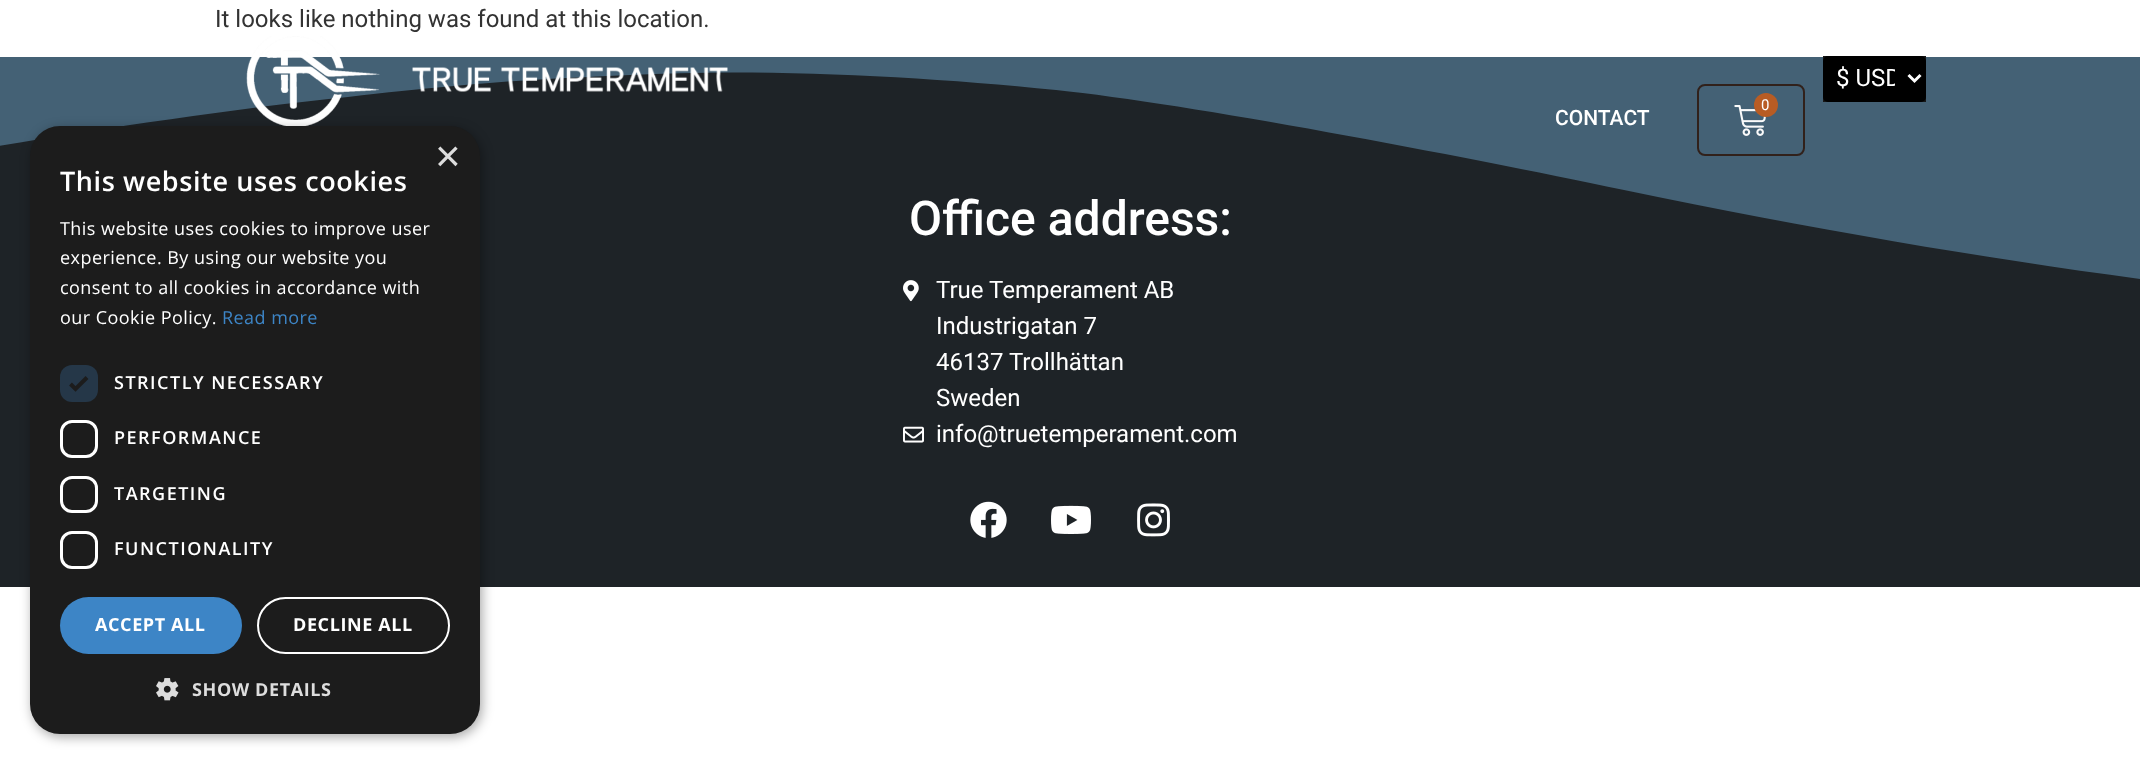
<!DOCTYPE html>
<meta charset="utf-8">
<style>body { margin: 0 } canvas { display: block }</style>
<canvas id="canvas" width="2140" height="763"></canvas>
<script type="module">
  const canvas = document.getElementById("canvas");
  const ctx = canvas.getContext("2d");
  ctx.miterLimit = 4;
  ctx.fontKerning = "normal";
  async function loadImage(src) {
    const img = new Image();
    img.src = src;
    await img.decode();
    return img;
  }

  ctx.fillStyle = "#ffffff";
  ctx.fillRect(0, 0, 2140, 763);
  ctx.font = "24px Roboto";
  ctx.fillStyle = "#333333";
  ctx.fillText("It looks like nothing was found at this location.", 215, 27);
  ctx.fillStyle = "#1e2327";
  ctx.fillRect(0, 72, 2140, 515);
  ctx.fillStyle = "#446175";
  ctx.beginPath();
  ctx.moveTo(630, 75);
  ctx.bezierCurveTo(757, 68, 921, 76, 1056, 90);
  ctx.bezierCurveTo(1190, 104, 1457, 155, 1624, 190);
  ctx.bezierCurveTo(2053, 279, 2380, 314, 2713, 328);
  ctx.bezierCurveTo(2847, 334, 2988, 338, 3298, 321);
  ctx.bezierCurveTo(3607, 304, 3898, 250, 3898, 250);
  ctx.lineTo(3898, 57);
  ctx.lineTo(-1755, 57);
  ctx.lineTo(-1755, 142);
  ctx.bezierCurveTo(-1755, 142, -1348, 232, -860, 227);
  ctx.bezierCurveTo(-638, 225, -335, 208, -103, 164);
  ctx.bezierCurveTo(17, 142, 193, 113, 348, 97);
  ctx.bezierCurveTo(502, 79, 571, 78, 630, 75);
  ctx.closePath();
  ctx.fill();
  ctx.drawImage(await loadImage("img1.png"), 246, 36, 134, 90);
  ctx.drawImage(await loadImage("img2.png"), 412, 67, 316, 25);
  ctx.fillStyle = "#171717";
  ctx.fillRect(1823, 56, 103, 46);
  ctx.fillStyle = "#000000";
  ctx.beginPath();
  ctx.roundRect(1823, 56, 103, 46, 5);
  ctx.fill();
  ctx.beginPath();
  ctx.moveTo(1908.5, 75);
  ctx.lineTo(1914.5, 81);
  ctx.lineTo(1920.5, 75);
  ctx.strokeStyle = "#ffffff";
  ctx.lineWidth = 3;
  ctx.stroke();
  ctx.save();
  ctx.beginPath();
  ctx.rect(1836, 63, 59, 32);
  ctx.clip();
  ctx.fillStyle = "#ffffff";
  ctx.fillText("$ USD", 1836, 86);
  ctx.restore();
  ctx.beginPath();
  ctx.roundRect(1698, 85, 106, 70, 7);
  ctx.strokeStyle = "#31211b";
  ctx.lineWidth = 2;
  ctx.stroke();
  ctx.drawImage(await loadImage("img3.png"), 1734, 105, 32, 31);
  ctx.fillStyle = "#b85c24";
  ctx.beginPath();
  ctx.arc(1766, 105, 12, 0, Math.PI * 2);
  ctx.fill();
  ctx.font = "15px Roboto";
  ctx.fillStyle = "#ffffff";
  ctx.fillText("0", 1761, 110);
  ctx.font = "500 21px Roboto";
  ctx.fillText("CONTACT", 1555, 125);
  ctx.fillStyle = "rgba(0, 0, 0, 0.35)";
  ctx.filter = "blur(6px)";
  ctx.beginPath();
  ctx.roundRect(32, 129, 450, 608, 30);
  ctx.fill();
  ctx.filter = "none";
  ctx.fillStyle = "#1c1c1c";
  ctx.beginPath();
  ctx.roundRect(30, 126, 450, 608, 30);
  ctx.fill();
  ctx.font = "44px Liberation Sans";
  ctx.fillStyle = "#dddddd";
  ctx.fillText("×", 435, 171);
  ctx.letterSpacing = "0.6px";
  ctx.font = "600 27px Open Sans";
  ctx.fillStyle = "#ffffff";
  ctx.fillText("This website uses cookies", 60, 191);
  ctx.letterSpacing = "0.45px";
  ctx.font = "18px Open Sans";
  ctx.fillText("This website uses cookies to improve user", 60, 235);
  ctx.fillText("experience. By using our website you", 60, 264);
  ctx.fillText("consent to all cookies in accordance with", 60, 294);
  ctx.fillText("our Cookie Policy.", 60, 324);
  ctx.fillStyle = "#3d85c6";
  ctx.fillText("Read more", 222, 324);
  ctx.fillStyle = "#253748";
  ctx.beginPath();
  ctx.roundRect(60, 365, 38, 37, 12);
  ctx.fill();
  ctx.beginPath();
  ctx.moveTo(70.5, 384);
  ctx.lineTo(75.5, 389);
  ctx.lineTo(87, 377.5);
  ctx.strokeStyle = "#1c1c1c";
  ctx.lineWidth = 3.9;
  ctx.stroke();
  ctx.letterSpacing = "1.5px";
  ctx.font = "600 18px Open Sans";
  ctx.fillStyle = "#ffffff";
  ctx.fillText("STRICTLY NECESSARY", 114, 389);
  ctx.beginPath();
  ctx.roundRect(61.5, 421.5, 35, 35, 10.5);
  ctx.strokeStyle = "#ffffff";
  ctx.lineWidth = 3;
  ctx.stroke();
  ctx.fillText("PERFORMANCE", 114, 444);
  ctx.beginPath();
  ctx.roundRect(61.5, 477.5, 35, 34, 10.5);
  ctx.stroke();
  ctx.fillText("TARGETING", 114, 500);
  ctx.beginPath();
  ctx.roundRect(61.5, 532.5, 35, 35, 10.5);
  ctx.stroke();
  ctx.fillText("FUNCTIONALITY", 114, 555);
  ctx.fillStyle = "#3d85c6";
  ctx.beginPath();
  ctx.roundRect(60, 597, 182, 57, 28.5);
  ctx.fill();
  ctx.letterSpacing = "0.6px";
  ctx.font = "bold 18px Open Sans";
  ctx.fillStyle = "#ffffff";
  ctx.fillText("ACCEPT ALL", 95, 631);
  ctx.beginPath();
  ctx.roundRect(258, 598, 191, 55, 27.5);
  ctx.lineWidth = 2;
  ctx.stroke();
  ctx.fillText("DECLINE ALL", 293, 631);
  ctx.drawImage(await loadImage("img4.png"), 156, 678, 23, 23);
  ctx.fillStyle = "#dddddd";
  ctx.fillText("SHOW DETAILS", 192, 696);
  ctx.letterSpacing = "0px";
  ctx.font = "500 48px Roboto";
  ctx.fillStyle = "#ffffff";
  ctx.fillText("Office address:", 909, 235);
  ctx.drawImage(await loadImage("img5.png"), 903, 280, 16, 22);
  ctx.font = "24px Roboto";
  ctx.fillText("True Temperament AB", 936, 298);
  ctx.fillText("Industrigatan 7", 936, 334);
  ctx.fillText("46137 Trollhättan", 936, 370);
  ctx.fillText("Sweden", 936, 406);
  ctx.drawImage(await loadImage("img6.png"), 903, 426, 21, 17);
  ctx.fillText("info@truetemperament.com", 936, 442);
  ctx.drawImage(await loadImage("img7.png"), 970, 501, 37, 37);
  ctx.drawImage(await loadImage("img8.png"), 1051, 505, 40, 29);
  ctx.drawImage(await loadImage("img9.png"), 1137, 503, 33, 34);
</script>
